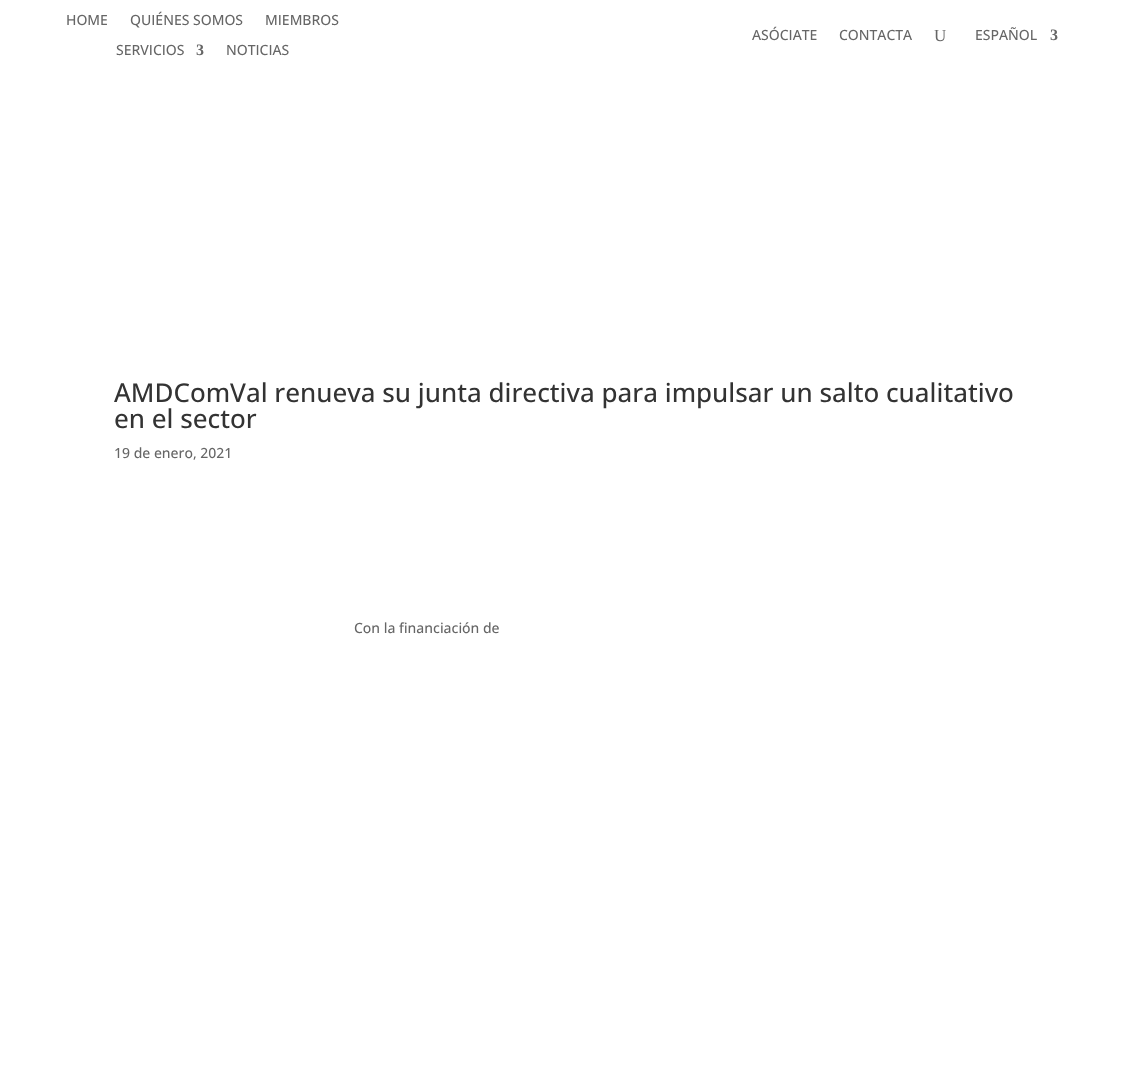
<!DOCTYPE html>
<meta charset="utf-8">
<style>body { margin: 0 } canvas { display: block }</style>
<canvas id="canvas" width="1137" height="1089"></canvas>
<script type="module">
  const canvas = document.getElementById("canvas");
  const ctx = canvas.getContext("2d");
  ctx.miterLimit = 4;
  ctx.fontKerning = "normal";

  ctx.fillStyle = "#ffffff";
  ctx.fillRect(0, 0, 1137, 1089);
  ctx.font = "500 14px Open Sans";
  ctx.fillStyle = "#666666";
  ctx.fillText("HOME", 66, 25);
  ctx.fillText("QUIÉNES SOMOS", 130, 25);
  ctx.fillText("MIEMBROS", 265, 25);
  ctx.fillText("SERVICIOS", 116, 55);
  ctx.font = "bold 16px Liberation Serif";
  ctx.fillText("3", 196, 55);
  ctx.font = "500 14px Open Sans";
  ctx.fillText("NOTICIAS", 226, 55);
  ctx.fillText("ASÓCIATE", 752, 40);
  ctx.fillText("CONTACTA", 839, 40);
  ctx.font = "17px Liberation Serif";
  ctx.fillText("U", 934, 41);
  ctx.font = "500 14px Open Sans";
  ctx.fillText("ESPAÑOL", 975, 40);
  ctx.font = "bold 16px Liberation Serif";
  ctx.fillText("3", 1050, 40);
  ctx.font = "500 26px Open Sans";
  ctx.fillStyle = "#333333";
  ctx.fillText("AMDComVal renueva su junta directiva para impulsar un salto cualitativo", 114, 402);
  ctx.fillText("en el sector", 114, 428);
  ctx.font = "500 14px Open Sans";
  ctx.fillStyle = "#666666";
  ctx.fillText("19 de enero, 2021", 114, 458);
  ctx.fillText("Con la financiación de", 354, 633);
</script>
